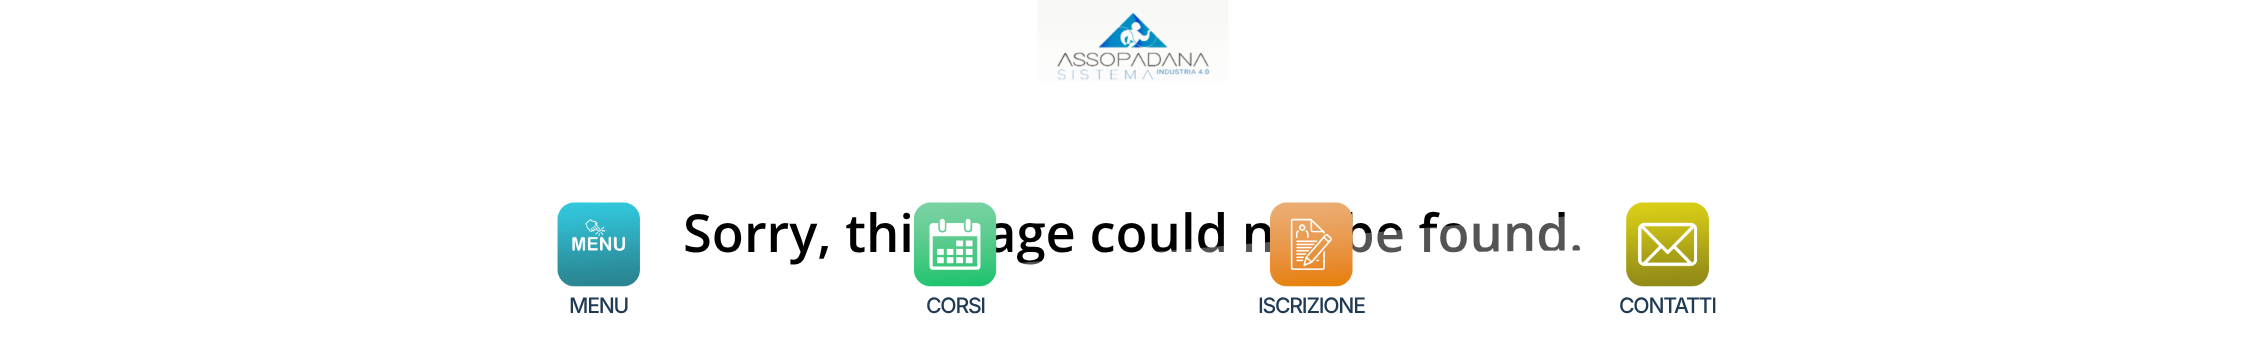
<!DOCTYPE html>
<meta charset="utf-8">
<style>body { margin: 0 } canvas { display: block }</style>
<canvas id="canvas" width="2266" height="337"></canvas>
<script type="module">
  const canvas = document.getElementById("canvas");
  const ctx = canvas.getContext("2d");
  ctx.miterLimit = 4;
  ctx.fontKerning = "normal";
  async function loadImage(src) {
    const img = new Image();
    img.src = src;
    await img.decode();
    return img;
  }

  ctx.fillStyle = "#ffffff";
  ctx.fillRect(0, 0, 2266, 337);
  ctx.drawImage(await loadImage("img1.png"), 1037, 0, 192, 81);
  ctx.font = "600 52.5px Open Sans";
  ctx.fillStyle = "#000000";
  ctx.fillText("Sorry, thi", 683, 252);
  ctx.fillText("age could n", 986, 252);
  ctx.fillText("be found.", 1342, 252);
  ctx.drawImage(await loadImage("img2.png"), 811, 216, 769, 94);
  ctx.drawImage(await loadImage("img3.png"), 557, 202, 83, 85);
  ctx.letterSpacing = "-1.25px";
  ctx.font = "500 21.25px Inter";
  ctx.fillStyle = "#203b54";
  ctx.fillText("MENU", 569, 313);
  ctx.drawImage(await loadImage("img4.png"), 913, 202, 84, 85);
  ctx.fillText("CORSI", 926, 313);
  ctx.drawImage(await loadImage("img5.png"), 1269, 202, 84, 85);
  ctx.fillText("ISCRIZIONE", 1258, 313);
  ctx.drawImage(await loadImage("img6.png"), 1626, 202, 83, 85);
  ctx.fillText("CONTATTI", 1619, 313);
</script>
